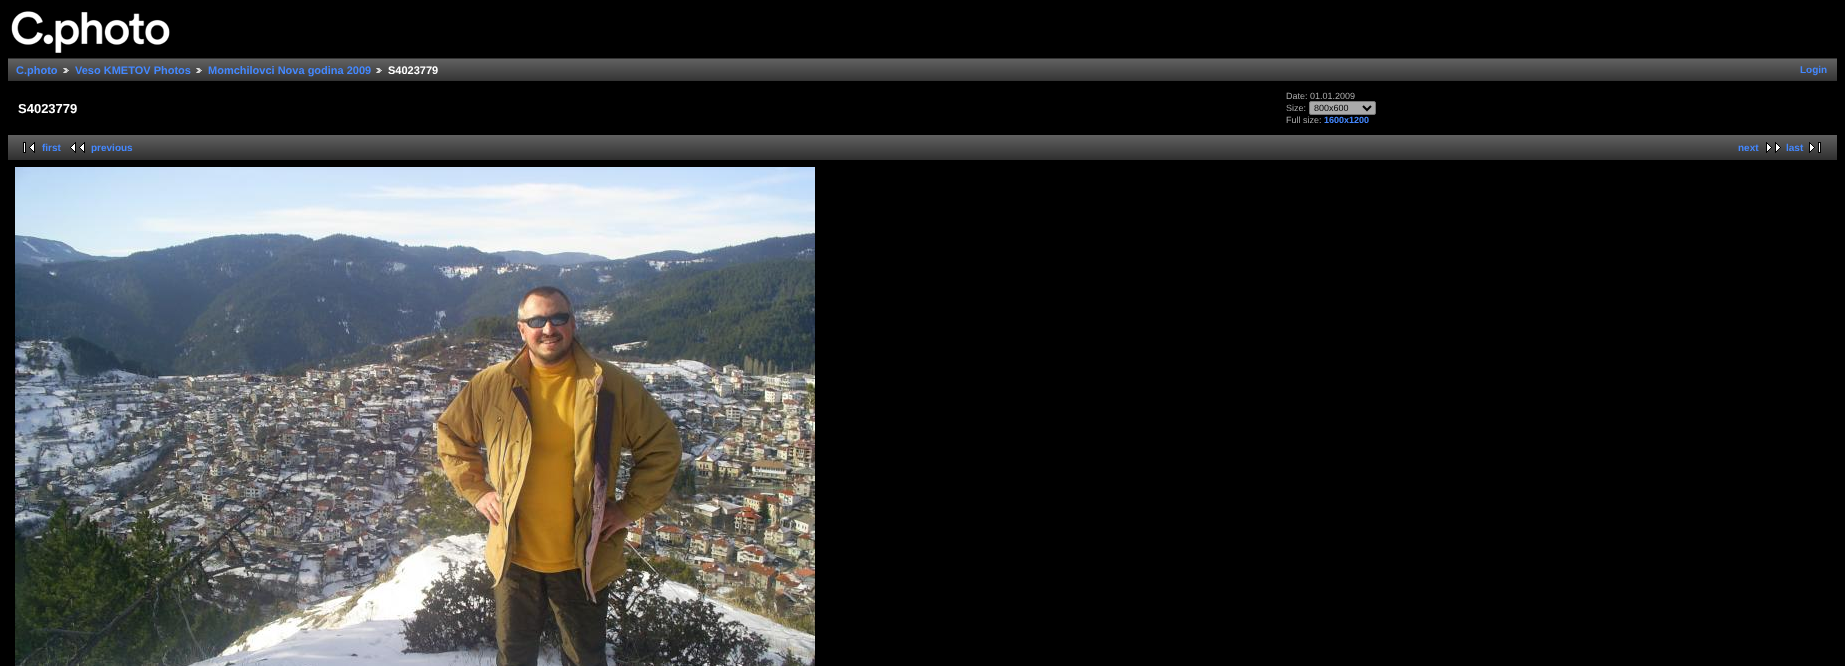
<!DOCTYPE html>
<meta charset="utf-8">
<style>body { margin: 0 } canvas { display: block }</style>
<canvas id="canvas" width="1845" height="666"></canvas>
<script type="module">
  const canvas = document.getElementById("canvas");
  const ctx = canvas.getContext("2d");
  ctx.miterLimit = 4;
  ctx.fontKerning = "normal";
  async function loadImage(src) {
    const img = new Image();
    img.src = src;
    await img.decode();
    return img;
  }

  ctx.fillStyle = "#000000";
  ctx.fillRect(0, 0, 1845, 666);
  ctx.drawImage(await loadImage("img1.png"), 11, 11, 159, 42);
  ctx.drawImage(await loadImage("img2.png"), 8, 59, 1829, 21);
  ctx.fillStyle = "#333333";
  ctx.fillRect(8, 58, 1829, 1);
  ctx.fillRect(8, 80, 1829, 1);
  ctx.font = "bold 11px Liberation Sans";
  ctx.fillStyle = "#4488ff";
  ctx.fillText("C.photo", 16, 74);
  ctx.drawImage(await loadImage("img3.png"), 63, 68, 6, 5);
  ctx.fillText("Veso KMETOV Photos", 75, 74);
  ctx.drawImage(await loadImage("img3.png"), 196, 68, 6, 5);
  ctx.fillText("Momchilovci Nova godina 2009", 208, 74);
  ctx.drawImage(await loadImage("img3.png"), 376, 68, 6, 5);
  ctx.fillStyle = "#ffffff";
  ctx.fillText("S4023779", 388, 74);
  ctx.font = "bold 10px Liberation Sans";
  ctx.fillStyle = "#4488ff";
  ctx.fillText("Login", 1800, 73);
  ctx.font = "bold 13px Liberation Sans";
  ctx.fillStyle = "#ffffff";
  ctx.fillText("S4023779", 18, 113);
  ctx.font = "9px Liberation Sans";
  ctx.fillStyle = "#aaaaaa";
  ctx.fillText("Date: 01.01.2009", 1286, 99);
  ctx.fillText("Size:", 1286, 111);
  ctx.beginPath();
  ctx.roundRect(1309.5, 101.5, 66, 13, 1.5);
  ctx.fill();
  ctx.strokeStyle = "#767676";
  ctx.stroke();
  ctx.beginPath();
  ctx.moveTo(1363, 106);
  ctx.lineTo(1367, 110);
  ctx.lineTo(1371, 106);
  ctx.strokeStyle = "#000000";
  ctx.lineWidth = 2;
  ctx.stroke();
  ctx.fillStyle = "#000000";
  ctx.fillText("800x600", 1314, 111);
  ctx.fillStyle = "#aaaaaa";
  ctx.fillText("Full size:", 1286, 123);
  ctx.font = "bold 9px Liberation Sans";
  ctx.fillStyle = "#4488ff";
  ctx.fillText("1600x1200", 1324, 123);
  ctx.drawImage(await loadImage("img4.png"), 8, 135, 1829, 25);
  ctx.drawImage(await loadImage("img5.png"), 23, 142, 12, 11);
  ctx.font = "bold 10px Liberation Sans";
  ctx.fillText("first", 42, 151);
  ctx.drawImage(await loadImage("img6.png"), 70, 142, 15, 11);
  ctx.fillText("previous", 91, 151);
  ctx.fillText("next", 1738, 151);
  ctx.drawImage(await loadImage("img7.png"), 1766, 142, 15, 11);
  ctx.fillText("last", 1786, 151);
  ctx.drawImage(await loadImage("img8.png"), 1809, 142, 12, 11);
  ctx.drawImage(await loadImage("img9.png"), 15, 167, 800, 499);
</script>
